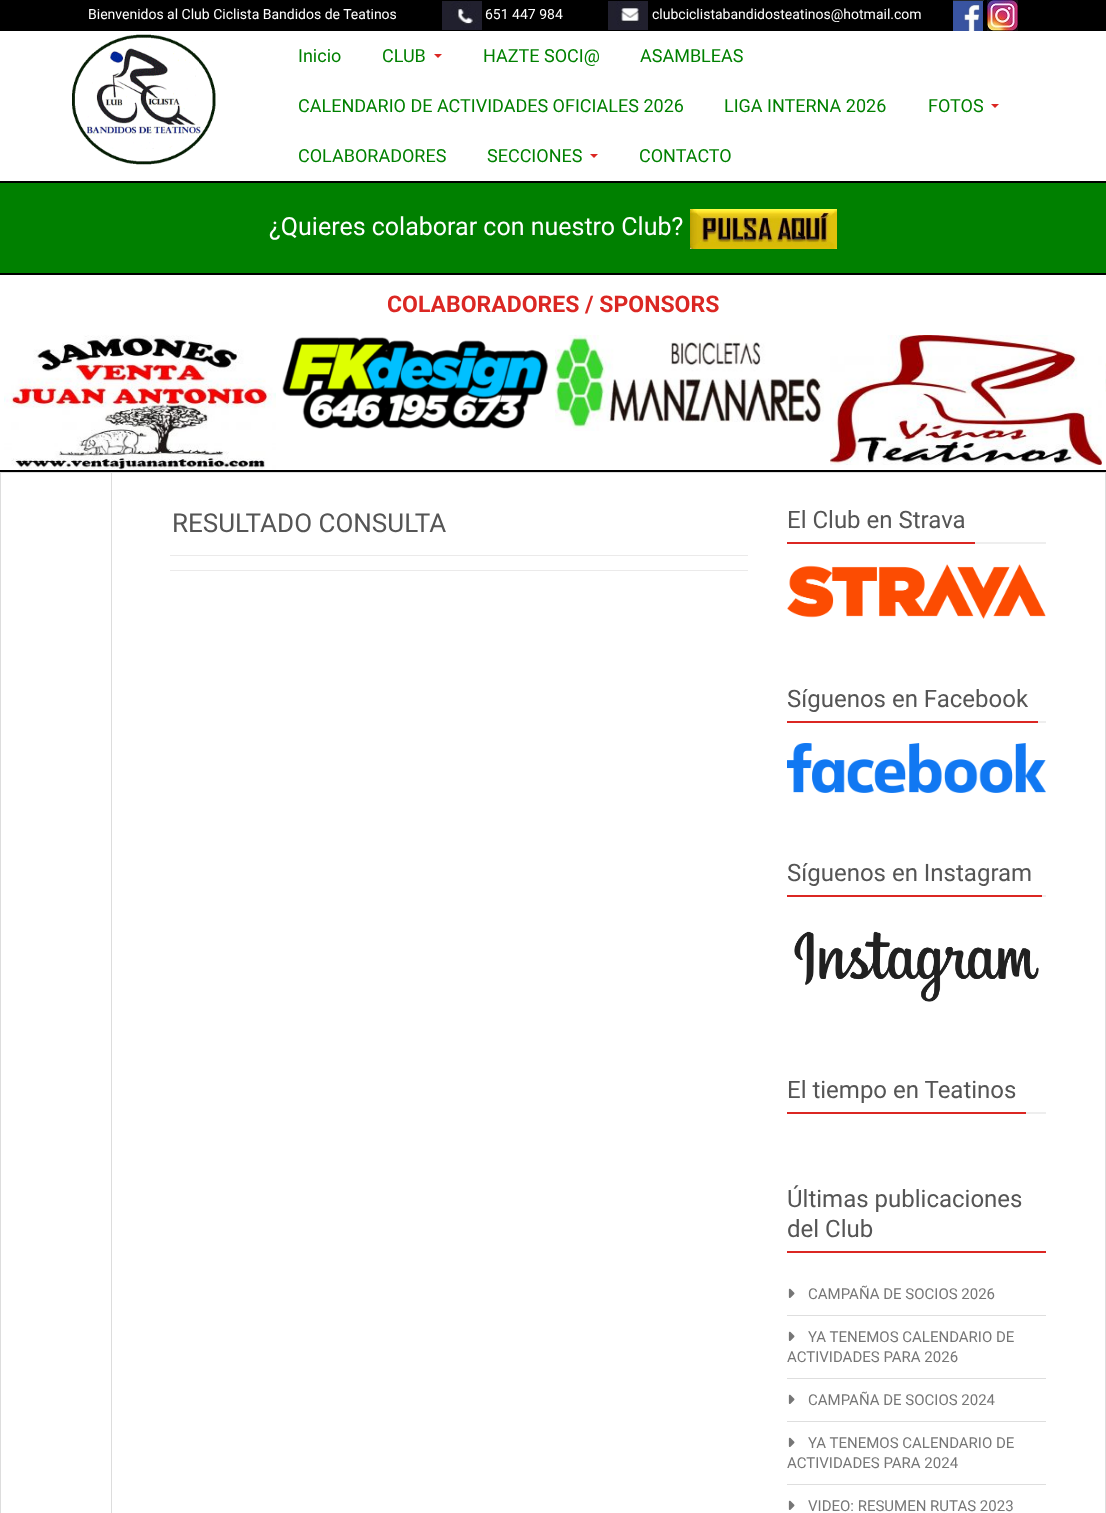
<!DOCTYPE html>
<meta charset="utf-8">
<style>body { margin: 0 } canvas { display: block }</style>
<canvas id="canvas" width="1106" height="1513"></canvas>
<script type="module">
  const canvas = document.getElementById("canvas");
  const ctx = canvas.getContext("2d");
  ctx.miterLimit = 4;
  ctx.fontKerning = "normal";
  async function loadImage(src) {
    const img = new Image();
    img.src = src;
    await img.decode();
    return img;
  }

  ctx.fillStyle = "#ffffff";
  ctx.fillRect(0, 0, 1106, 1513);
  ctx.fillStyle = "#000000";
  ctx.fillRect(0, 0, 1106, 31);
  ctx.font = "14px Roboto";
  ctx.fillStyle = "#ffffff";
  ctx.fillText("Bienvenidos al Club Ciclista Bandidos de Teatinos", 88, 19);
  ctx.drawImage(await loadImage("img1.png"), 442, 1, 40, 29);
  ctx.fillText("651 447 984", 485, 19);
  ctx.drawImage(await loadImage("img2.png"), 608, 1, 40, 29);
  ctx.fillText("clubciclistabandidosteatinos@hotmail.com", 652, 19);
  ctx.drawImage(await loadImage("img3.png"), 953, 0, 31, 31);
  ctx.drawImage(await loadImage("img4.png"), 987, 0, 31, 31);
  ctx.drawImage(await loadImage("img5.png"), 72, 34, 144, 131);
  ctx.font = "18px Roboto";
  ctx.fillStyle = "#008000";
  ctx.fillText("Inicio", 298, 62);
  ctx.fillText("CLUB", 382, 62);
  ctx.fillStyle = "#db2723";
  ctx.beginPath();
  ctx.moveTo(434, 54);
  ctx.lineTo(442, 54);
  ctx.lineTo(438, 58);
  ctx.closePath();
  ctx.fill();
  ctx.fillStyle = "#008000";
  ctx.fillText("HAZTE SOCI@", 483, 62);
  ctx.fillText("ASAMBLEAS", 640, 62);
  ctx.fillText("CALENDARIO DE ACTIVIDADES OFICIALES 2026", 298, 112);
  ctx.fillText("LIGA INTERNA 2026", 724, 112);
  ctx.fillText("FOTOS", 928, 112);
  ctx.fillStyle = "#db2723";
  ctx.beginPath();
  ctx.moveTo(991, 104);
  ctx.lineTo(999, 104);
  ctx.lineTo(995, 108);
  ctx.closePath();
  ctx.fill();
  ctx.fillStyle = "#008000";
  ctx.fillText("COLABORADORES", 298, 162);
  ctx.fillText("SECCIONES", 487, 162);
  ctx.fillStyle = "#db2723";
  ctx.beginPath();
  ctx.moveTo(590, 154);
  ctx.lineTo(598, 154);
  ctx.lineTo(594, 158);
  ctx.closePath();
  ctx.fill();
  ctx.fillStyle = "#008000";
  ctx.fillText("CONTACTO", 639, 162);
  ctx.fillStyle = "#000000";
  ctx.fillRect(0, 181, 1106, 2);
  ctx.fillStyle = "#008000";
  ctx.fillRect(0, 183, 1106, 90);
  ctx.font = "25px Roboto";
  ctx.fillStyle = "#ffffff";
  ctx.fillText("¿Quieres colaborar con nuestro Club?", 269, 235);
  ctx.drawImage(await loadImage("img6.png"), 690, 209, 147, 40);
  ctx.fillStyle = "#000000";
  ctx.fillRect(0, 273, 1106, 2);
  ctx.font = "bold 23px Roboto";
  ctx.fillStyle = "#db2723";
  ctx.fillText("COLABORADORES / SPONSORS", 387, 312);
  ctx.drawImage(await loadImage("img7.png"), 4, 335, 272, 135);
  ctx.drawImage(await loadImage("img8.png"), 282, 337, 267, 92);
  ctx.drawImage(await loadImage("img9.png"), 555, 335, 269, 96);
  ctx.drawImage(await loadImage("img10.png"), 830, 335, 272, 130);
  ctx.drawImage(await loadImage("img11.png"), 1105, 363, 1, 29);
  ctx.fillStyle = "#000000";
  ctx.fillRect(0, 470, 1106, 2);
  ctx.fillStyle = "#dddddd";
  ctx.fillRect(0, 472, 1106, 1);
  ctx.fillRect(1105, 472, 1, 1041);
  ctx.fillRect(0, 472, 1, 1041);
  ctx.fillRect(111, 472, 1, 1041);
  ctx.font = "26px Roboto";
  ctx.fillStyle = "#555555";
  ctx.fillText("RESULTADO CONSULTA", 172, 532);
  ctx.fillStyle = "#ebeaea";
  ctx.fillRect(170, 555, 578, 1);
  ctx.fillRect(170, 570, 578, 1);
  ctx.fillStyle = "#eeeeee";
  ctx.fillRect(975, 542, 71, 2);
  ctx.fillStyle = "#db2723";
  ctx.fillRect(787, 542, 188, 2);
  ctx.font = "24px Roboto";
  ctx.fillStyle = "#555555";
  ctx.fillText("El Club en Strava", 787, 528);
  ctx.drawImage(await loadImage("img12.png"), 787, 564, 259, 55);
  ctx.fillStyle = "#eeeeee";
  ctx.fillRect(1038, 721, 8, 2);
  ctx.fillStyle = "#db2723";
  ctx.fillRect(787, 721, 251, 2);
  ctx.fillStyle = "#555555";
  ctx.fillText("Síguenos en Facebook", 787, 707);
  ctx.drawImage(await loadImage("img13.png"), 787, 743, 259, 50);
  ctx.fillStyle = "#eeeeee";
  ctx.fillRect(1042, 895, 4, 2);
  ctx.fillStyle = "#db2723";
  ctx.fillRect(787, 895, 255, 2);
  ctx.fillStyle = "#555555";
  ctx.fillText("Síguenos en Instagram", 787, 881);
  ctx.drawImage(await loadImage("img14.png"), 794, 931, 245, 71);
  ctx.fillStyle = "#eeeeee";
  ctx.fillRect(1026, 1112, 20, 2);
  ctx.fillStyle = "#db2723";
  ctx.fillRect(787, 1112, 239, 2);
  ctx.fillStyle = "#555555";
  ctx.fillText("El tiempo en Teatinos", 787, 1098);
  ctx.fillStyle = "#db2723";
  ctx.fillRect(787, 1251, 259, 2);
  ctx.fillStyle = "#555555";
  ctx.fillText("Últimas publicaciones", 787, 1207);
  ctx.fillText("del Club", 787, 1237);
  ctx.fillStyle = "#dedede";
  ctx.fillRect(787, 1315, 259, 1);
  ctx.drawImage(await loadImage("img15.png"), 788, 1288, 7, 10);
  ctx.font = "15px Roboto";
  ctx.fillStyle = "#767676";
  ctx.fillText("CAMPAÑA DE SOCIOS 2026", 808, 1299);
  ctx.fillStyle = "#dedede";
  ctx.fillRect(787, 1378, 259, 1);
  ctx.drawImage(await loadImage("img15.png"), 788, 1331, 7, 10);
  ctx.fillStyle = "#767676";
  ctx.fillText("YA TENEMOS CALENDARIO DE", 808, 1342);
  ctx.fillText("ACTIVIDADES PARA 2026", 787, 1362);
  ctx.fillStyle = "#dedede";
  ctx.fillRect(787, 1421, 259, 1);
  ctx.drawImage(await loadImage("img15.png"), 788, 1394, 7, 10);
  ctx.fillStyle = "#767676";
  ctx.fillText("CAMPAÑA DE SOCIOS 2024", 808, 1405);
  ctx.fillStyle = "#dedede";
  ctx.fillRect(787, 1484, 259, 1);
  ctx.drawImage(await loadImage("img15.png"), 788, 1437, 7, 10);
  ctx.fillStyle = "#767676";
  ctx.fillText("YA TENEMOS CALENDARIO DE", 808, 1448);
  ctx.fillText("ACTIVIDADES PARA 2024", 787, 1468);
  ctx.drawImage(await loadImage("img15.png"), 788, 1500, 7, 10);
  ctx.fillText("VIDEO: RESUMEN RUTAS 2023", 808, 1511);
</script>
